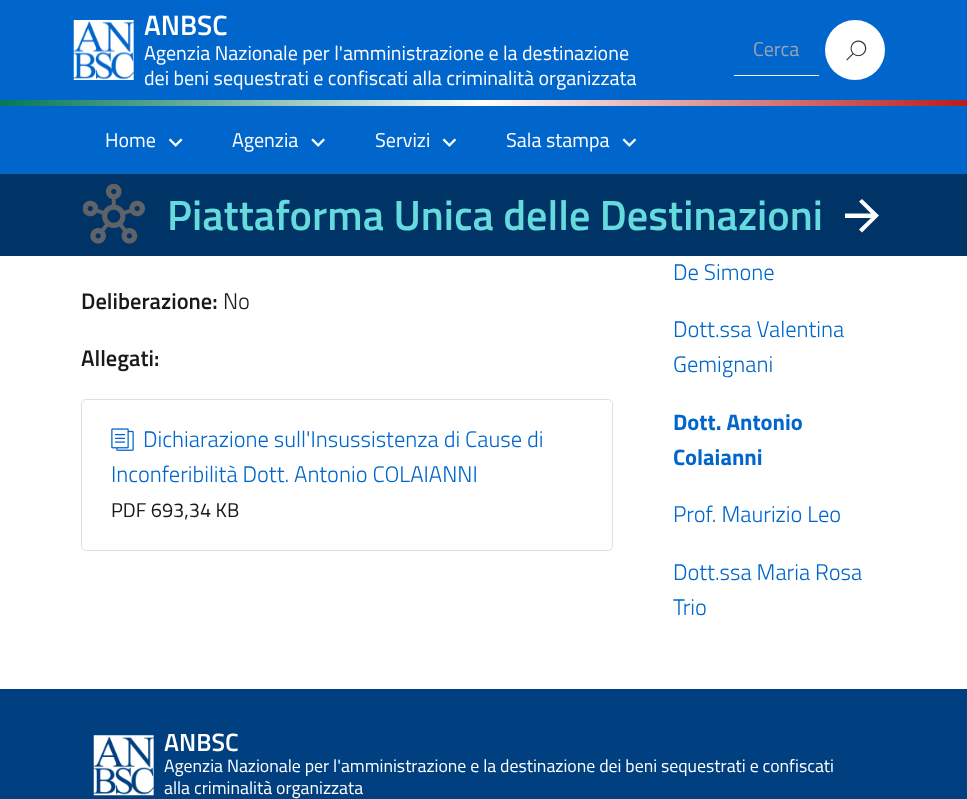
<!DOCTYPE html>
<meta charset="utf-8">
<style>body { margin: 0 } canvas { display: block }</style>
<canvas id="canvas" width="967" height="799"></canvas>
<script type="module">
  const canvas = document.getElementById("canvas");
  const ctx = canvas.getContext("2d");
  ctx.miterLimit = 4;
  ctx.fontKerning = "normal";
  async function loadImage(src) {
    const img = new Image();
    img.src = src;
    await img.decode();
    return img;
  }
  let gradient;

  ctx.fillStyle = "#ffffff";
  ctx.fillRect(0, 0, 967, 799);
  ctx.fillStyle = "#0066cc";
  ctx.fillRect(0, 0, 967, 100);
  ctx.drawImage(await loadImage("img1.png"), 73, 20, 61, 60);
  ctx.font = "600 28px Titillium Web";
  ctx.fillStyle = "#ffffff";
  ctx.fillText("ANBSC", 144, 35);
  ctx.font = "20px Titillium Web";
  ctx.fillText("Agenzia Nazionale per l'amministrazione e la destinazione", 144, 60);
  ctx.fillText("dei beni sequestrati e confiscati alla criminalità organizzata", 144, 85);
  ctx.fillRect(734, 75, 85, 1);
  ctx.fillStyle = "#9ca3af";
  ctx.fillText("Cerca", 753, 56);
  ctx.fillStyle = "#ffffff";
  ctx.beginPath();
  ctx.arc(855, 50, 30, 0, Math.PI * 2);
  ctx.fill();
  ctx.drawImage(await loadImage("img2.png"), 846, 40, 21, 21);
  gradient = ctx.createLinearGradient(0, 103, 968, 103);
  gradient.addColorStop(0, "#047857");
  gradient.addColorStop(0.5, "#ffffff");
  gradient.addColorStop(1, "#b91c1c");
  ctx.fillStyle = gradient;
  ctx.fillRect(0, 100, 967, 6);
  ctx.fillStyle = "#0066cc";
  ctx.fillRect(0, 106, 967, 68);
  ctx.fillStyle = "#ffffff";
  ctx.fillText("Home", 105, 147);
  ctx.drawImage(await loadImage("img3.png"), 168, 138, 15, 9);
  ctx.fillText("Agenzia", 232, 147);
  ctx.drawImage(await loadImage("img4.png"), 311, 138, 14, 9);
  ctx.fillText("Servizi", 375, 147);
  ctx.drawImage(await loadImage("img5.png"), 442, 138, 15, 9);
  ctx.fillText("Sala stampa", 506, 147);
  ctx.drawImage(await loadImage("img5.png"), 622, 138, 15, 9);
  ctx.fillStyle = "#003366";
  ctx.fillRect(0, 174, 967, 82);
  ctx.drawImage(await loadImage("img6.png"), 83, 184, 62, 60);
  ctx.font = "600 42.25px Titillium Web";
  ctx.fillStyle = "#65dbde";
  ctx.fillText("Piattaforma Unica delle Destinazioni", 167, 230);
  ctx.fillStyle = "#ffffff";
  ctx.beginPath();
  ctx.moveTo(845, 218);
  ctx.lineTo(871, 218);
  ctx.lineTo(859, 229.5);
  ctx.lineTo(862, 232.5);
  ctx.lineTo(879, 215.5);
  ctx.lineTo(862, 199);
  ctx.lineTo(859, 201.5);
  ctx.lineTo(871, 213.5);
  ctx.lineTo(845, 213.5);
  ctx.closePath();
  ctx.fill();
  ctx.font = "600 22.5px Titillium Web";
  ctx.fillStyle = "#19191a";
  ctx.fillText("Deliberazione:", 81, 309);
  ctx.font = "300 22.5px Titillium Web";
  ctx.fillText("No", 223, 309);
  ctx.font = "600 22.5px Titillium Web";
  ctx.fillText("Allegati:", 81, 366);
  ctx.beginPath();
  ctx.roundRect(81.5, 399.5, 531, 151, 4.5);
  ctx.strokeStyle = "#dfdfdf";
  ctx.stroke();
  ctx.drawImage(await loadImage("img7.png"), 111, 428, 23, 23);
  ctx.font = "300 22.5px Titillium Web";
  ctx.fillStyle = "#0066cc";
  ctx.fillText("Dichiarazione sull'Insussistenza di Cause di", 143, 447);
  ctx.fillText("Inconferibilità Dott. Antonio COLAIANNI", 111, 482);
  ctx.font = "20px Titillium Web";
  ctx.fillStyle = "#19191a";
  ctx.fillText("PDF 693,34 KB", 111, 517);
  ctx.font = "300 22.5px Titillium Web";
  ctx.fillStyle = "#0066cc";
  ctx.fillText("De Simone", 673, 280);
  ctx.fillText("Dott.ssa Valentina", 673, 337);
  ctx.fillText("Gemignani", 673, 372);
  ctx.font = "bold 22.5px Titillium Web";
  ctx.fillText("Dott. Antonio", 673, 430);
  ctx.fillText("Colaianni", 673, 465);
  ctx.font = "300 22.5px Titillium Web";
  ctx.fillText("Prof. Maurizio Leo", 673, 522);
  ctx.fillText("Dott.ssa Maria Rosa", 673, 580);
  ctx.fillText("Trio", 673, 615);
  ctx.fillStyle = "#004080";
  ctx.fillRect(0, 689, 967, 110);
  ctx.drawImage(await loadImage("img8.png"), 93, 735, 61, 61);
  ctx.font = "600 25px Titillium Web";
  ctx.fillStyle = "#ffffff";
  ctx.fillText("ANBSC", 164, 751);
  ctx.font = "17.8px Titillium Web";
  ctx.fillText("Agenzia Nazionale per l'amministrazione e la destinazione dei beni sequestrati e confiscati", 164, 772);
  ctx.fillText("alla criminalità organizzata", 164, 794);
</script>
